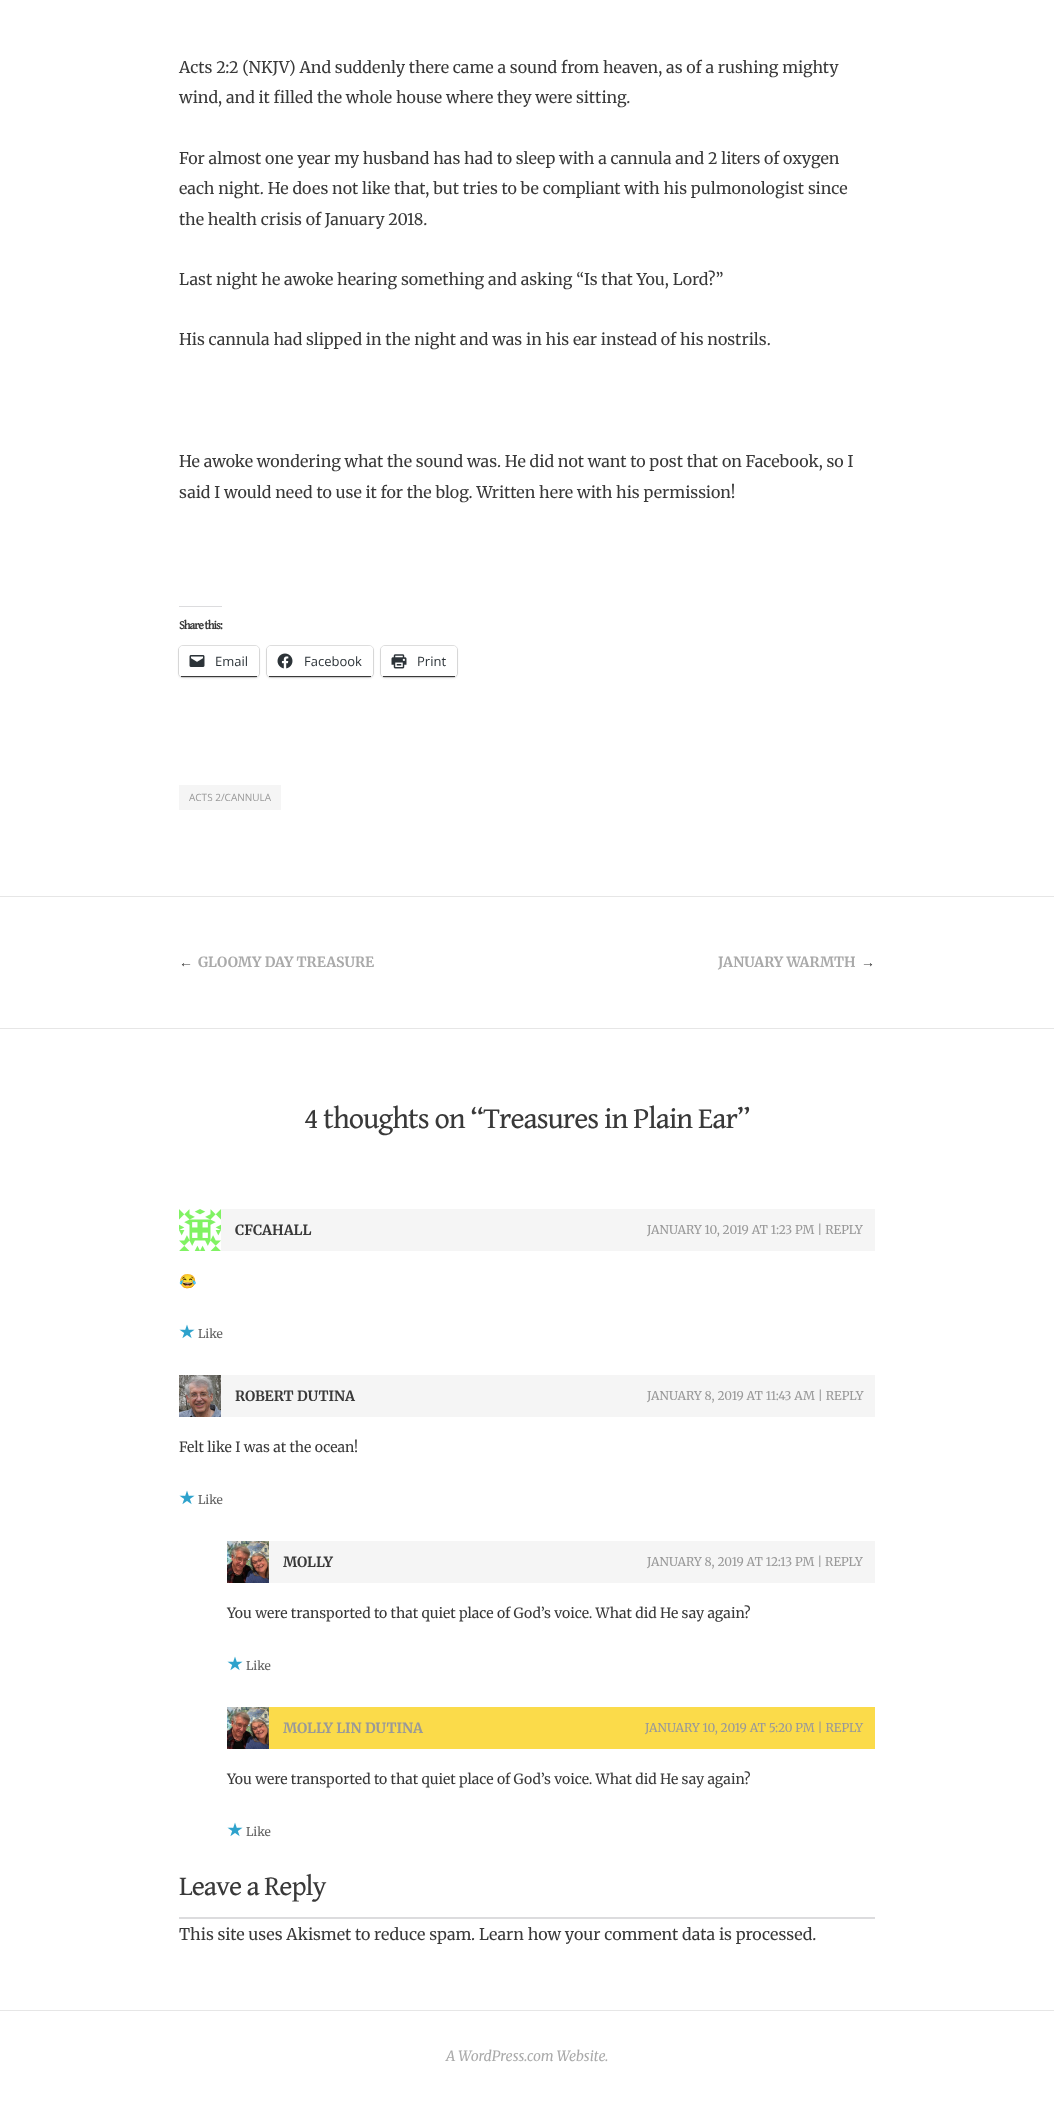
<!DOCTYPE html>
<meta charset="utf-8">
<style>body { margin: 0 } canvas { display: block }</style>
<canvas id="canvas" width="1054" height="2101"></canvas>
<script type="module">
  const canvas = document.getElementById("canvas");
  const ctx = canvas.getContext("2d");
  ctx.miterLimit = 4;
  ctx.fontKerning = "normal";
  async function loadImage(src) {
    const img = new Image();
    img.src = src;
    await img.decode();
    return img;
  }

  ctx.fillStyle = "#ffffff";
  ctx.fillRect(0, 0, 1054, 2101);
  ctx.fillStyle = "#e6e6e6";
  ctx.fillRect(0, 896, 1054, 1);
  ctx.font = "16px Merriweather";
  ctx.fillStyle = "#393939";
  ctx.fillText("Acts 2:2 (NKJV) And suddenly there came a sound from heaven, as of a rushing mighty", 179, 73);
  ctx.fillText("wind, and it filled the whole house where they were sitting.", 179, 103);
  ctx.fillText("For almost one year my husband has had to sleep with a cannula and 2 liters of oxygen", 179, 164);
  ctx.fillText("each night. He does not like that, but tries to be compliant with his pulmonologist since", 179, 194);
  ctx.fillText("the health crisis of January 2018.", 179, 225);
  ctx.fillText("Last night he awoke hearing something and asking “Is that You, Lord?”", 179, 285);
  ctx.fillText("His cannula had slipped in the night and was in his ear instead of his nostrils.", 179, 345);
  ctx.fillText("He awoke wondering what the sound was. He did not want to post that on Facebook, so I", 179, 467);
  ctx.fillText("said I would need to use it for the blog. Written here with his permission!", 179, 498);
  ctx.fillStyle = "#dcdcde";
  ctx.fillRect(179, 606, 43, 1);
  ctx.letterSpacing = "-1px";
  ctx.font = "bold 12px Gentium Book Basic";
  ctx.fillStyle = "#393939";
  ctx.fillText("Share this:", 179, 629);
  ctx.beginPath();
  ctx.roundRect(178.5, 645.5, 81, 32, 4.5);
  ctx.strokeStyle = "#e0e0e0";
  ctx.stroke();
  ctx.fillStyle = "rgba(0, 0, 0, 0.12)";
  ctx.filter = "blur(1px)";
  ctx.beginPath();
  ctx.roundRect(179, 647, 80, 31, 4);
  ctx.fill();
  ctx.filter = "none";
  ctx.fillStyle = "#ffffff";
  ctx.beginPath();
  ctx.roundRect(179, 646, 80, 31, 4);
  ctx.fill();
  ctx.fillStyle = "#393939";
  ctx.fillRect(181, 676, 76, 1);
  ctx.drawImage(await loadImage("img1.png"), 189, 655, 16, 12);
  ctx.letterSpacing = "0px";
  ctx.font = "13px Open Sans";
  ctx.fillStyle = "#2c3338";
  ctx.fillText("Email", 215, 666);
  ctx.beginPath();
  ctx.roundRect(266.5, 645.5, 107, 32, 4.5);
  ctx.stroke();
  ctx.fillStyle = "rgba(0, 0, 0, 0.12)";
  ctx.filter = "blur(1px)";
  ctx.beginPath();
  ctx.roundRect(267, 647, 106, 31, 4);
  ctx.fill();
  ctx.filter = "none";
  ctx.fillStyle = "#ffffff";
  ctx.beginPath();
  ctx.roundRect(267, 646, 106, 31, 4);
  ctx.fill();
  ctx.fillStyle = "#393939";
  ctx.fillRect(269, 676, 102, 1);
  ctx.drawImage(await loadImage("img2.png"), 277, 653, 16, 16);
  ctx.fillStyle = "#2c3338";
  ctx.fillText("Facebook", 304, 666);
  ctx.beginPath();
  ctx.roundRect(380.5, 645.5, 77, 32, 4.5);
  ctx.stroke();
  ctx.fillStyle = "rgba(0, 0, 0, 0.12)";
  ctx.filter = "blur(1px)";
  ctx.beginPath();
  ctx.roundRect(381, 647, 76, 31, 4);
  ctx.fill();
  ctx.filter = "none";
  ctx.fillStyle = "#ffffff";
  ctx.beginPath();
  ctx.roundRect(381, 646, 76, 31, 4);
  ctx.fill();
  ctx.fillStyle = "#393939";
  ctx.fillRect(383, 676, 72, 1);
  ctx.drawImage(await loadImage("img3.png"), 391, 654, 16, 15);
  ctx.fillStyle = "#2c3338";
  ctx.fillText("Print", 417, 666);
  ctx.fillStyle = "#f5f5f5";
  ctx.fillRect(179, 785, 102, 25);
  ctx.font = "10px Open Sans";
  ctx.fillStyle = "#999999";
  ctx.fillText("ACTS 2/CANNULA", 189, 801);
  ctx.fillStyle = "#e6e6e6";
  ctx.fillRect(0, 1028, 1054, 1);
  ctx.font = "bold 14px Liberation Serif";
  ctx.fillStyle = "#393939";
  ctx.fillText("←", 179, 967);
  ctx.font = "bold 14px Merriweather";
  ctx.fillStyle = "#aaaaaa";
  ctx.fillText("GLOOMY DAY TREASURE", 198, 967);
  ctx.fillText("JANUARY WARMTH", 718, 967);
  ctx.font = "bold 14px Liberation Serif";
  ctx.fillStyle = "#393939";
  ctx.fillText("→", 861, 967);
  ctx.fillStyle = "#e6e6e6";
  ctx.fillRect(0, 2010, 1054, 1);
  ctx.letterSpacing = "-1px";
  ctx.font = "30px Gentium Book Basic";
  ctx.fillStyle = "#393939";
  ctx.fillText("4 thoughts on “Treasures in Plain Ear”", 304, 1128);
  ctx.fillStyle = "#f5f5f5";
  ctx.fillRect(221, 1209, 654, 42);
  ctx.drawImage(await loadImage("img4.png"), 179, 1209, 42, 42);
  ctx.letterSpacing = "0px";
  ctx.font = "bold 14px Merriweather";
  ctx.fillStyle = "#393939";
  ctx.fillText("CFCAHALL", 235, 1235);
  ctx.font = "12px Merriweather";
  ctx.fillStyle = "#999999";
  ctx.fillText("JANUARY 10, 2019 AT 1:23 PM | REPLY", 647, 1234);
  ctx.font = "14px Noto Color Emoji";
  ctx.fillStyle = "#393939";
  ctx.fillText("😂", 179, 1286);
  ctx.drawImage(await loadImage("img5.png"), 179, 1324, 16, 15);
  ctx.font = "12px Merriweather";
  ctx.fillStyle = "#616161";
  ctx.fillText("Like", 198, 1338);
  ctx.fillStyle = "#f5f5f5";
  ctx.fillRect(221, 1375, 654, 42);
  ctx.drawImage(await loadImage("img6.png"), 179, 1375, 42, 42);
  ctx.font = "bold 14px Merriweather";
  ctx.fillStyle = "#393939";
  ctx.fillText("ROBERT DUTINA", 235, 1401);
  ctx.font = "12px Merriweather";
  ctx.fillStyle = "#999999";
  ctx.fillText("JANUARY 8, 2019 AT 11:43 AM | REPLY", 647, 1400);
  ctx.font = "14px Merriweather";
  ctx.fillStyle = "#393939";
  ctx.fillText("Felt like I was at the ocean!", 179, 1452);
  ctx.drawImage(await loadImage("img5.png"), 179, 1490, 16, 15);
  ctx.font = "12px Merriweather";
  ctx.fillStyle = "#616161";
  ctx.fillText("Like", 198, 1504);
  ctx.fillStyle = "#f5f5f5";
  ctx.fillRect(269, 1541, 606, 42);
  ctx.drawImage(await loadImage("img7.png"), 227, 1541, 42, 42);
  ctx.font = "bold 14px Merriweather";
  ctx.fillStyle = "#393939";
  ctx.fillText("MOLLY", 283, 1567);
  ctx.font = "12px Merriweather";
  ctx.fillStyle = "#999999";
  ctx.fillText("JANUARY 8, 2019 AT 12:13 PM | REPLY", 647, 1566);
  ctx.font = "14px Merriweather";
  ctx.fillStyle = "#393939";
  ctx.fillText("You were transported to that quiet place of God’s voice. What did He say again?", 227, 1618);
  ctx.drawImage(await loadImage("img5.png"), 227, 1656, 16, 15);
  ctx.font = "12px Merriweather";
  ctx.fillStyle = "#616161";
  ctx.fillText("Like", 246, 1670);
  ctx.fillStyle = "#fbdb4a";
  ctx.fillRect(269, 1707, 606, 42);
  ctx.drawImage(await loadImage("img7.png"), 227, 1707, 42, 42);
  ctx.font = "bold 14px Merriweather";
  ctx.fillStyle = "#999999";
  ctx.fillText("MOLLY LIN DUTINA", 283, 1733);
  ctx.font = "12px Merriweather";
  ctx.fillText("JANUARY 10, 2019 AT 5:20 PM | REPLY", 645, 1732);
  ctx.font = "14px Merriweather";
  ctx.fillStyle = "#393939";
  ctx.fillText("You were transported to that quiet place of God’s voice. What did He say again?", 227, 1784);
  ctx.drawImage(await loadImage("img5.png"), 227, 1822, 16, 15);
  ctx.font = "12px Merriweather";
  ctx.fillStyle = "#616161";
  ctx.fillText("Like", 246, 1836);
  ctx.letterSpacing = "-1px";
  ctx.font = "28px Gentium Book Basic";
  ctx.fillStyle = "#393939";
  ctx.fillText("Leave a Reply", 179, 1895);
  ctx.fillStyle = "#dcdcde";
  ctx.fillRect(179, 1917, 696, 2);
  ctx.letterSpacing = "0px";
  ctx.font = "16px Merriweather";
  ctx.fillStyle = "#393939";
  ctx.fillText("This site uses Akismet to reduce spam. Learn how your comment data is processed.", 179, 1940);
  ctx.font = "italic 14px Merriweather";
  ctx.fillStyle = "#aaaaaa";
  ctx.fillText("A WordPress.com Website.", 446, 2061);
</script>
